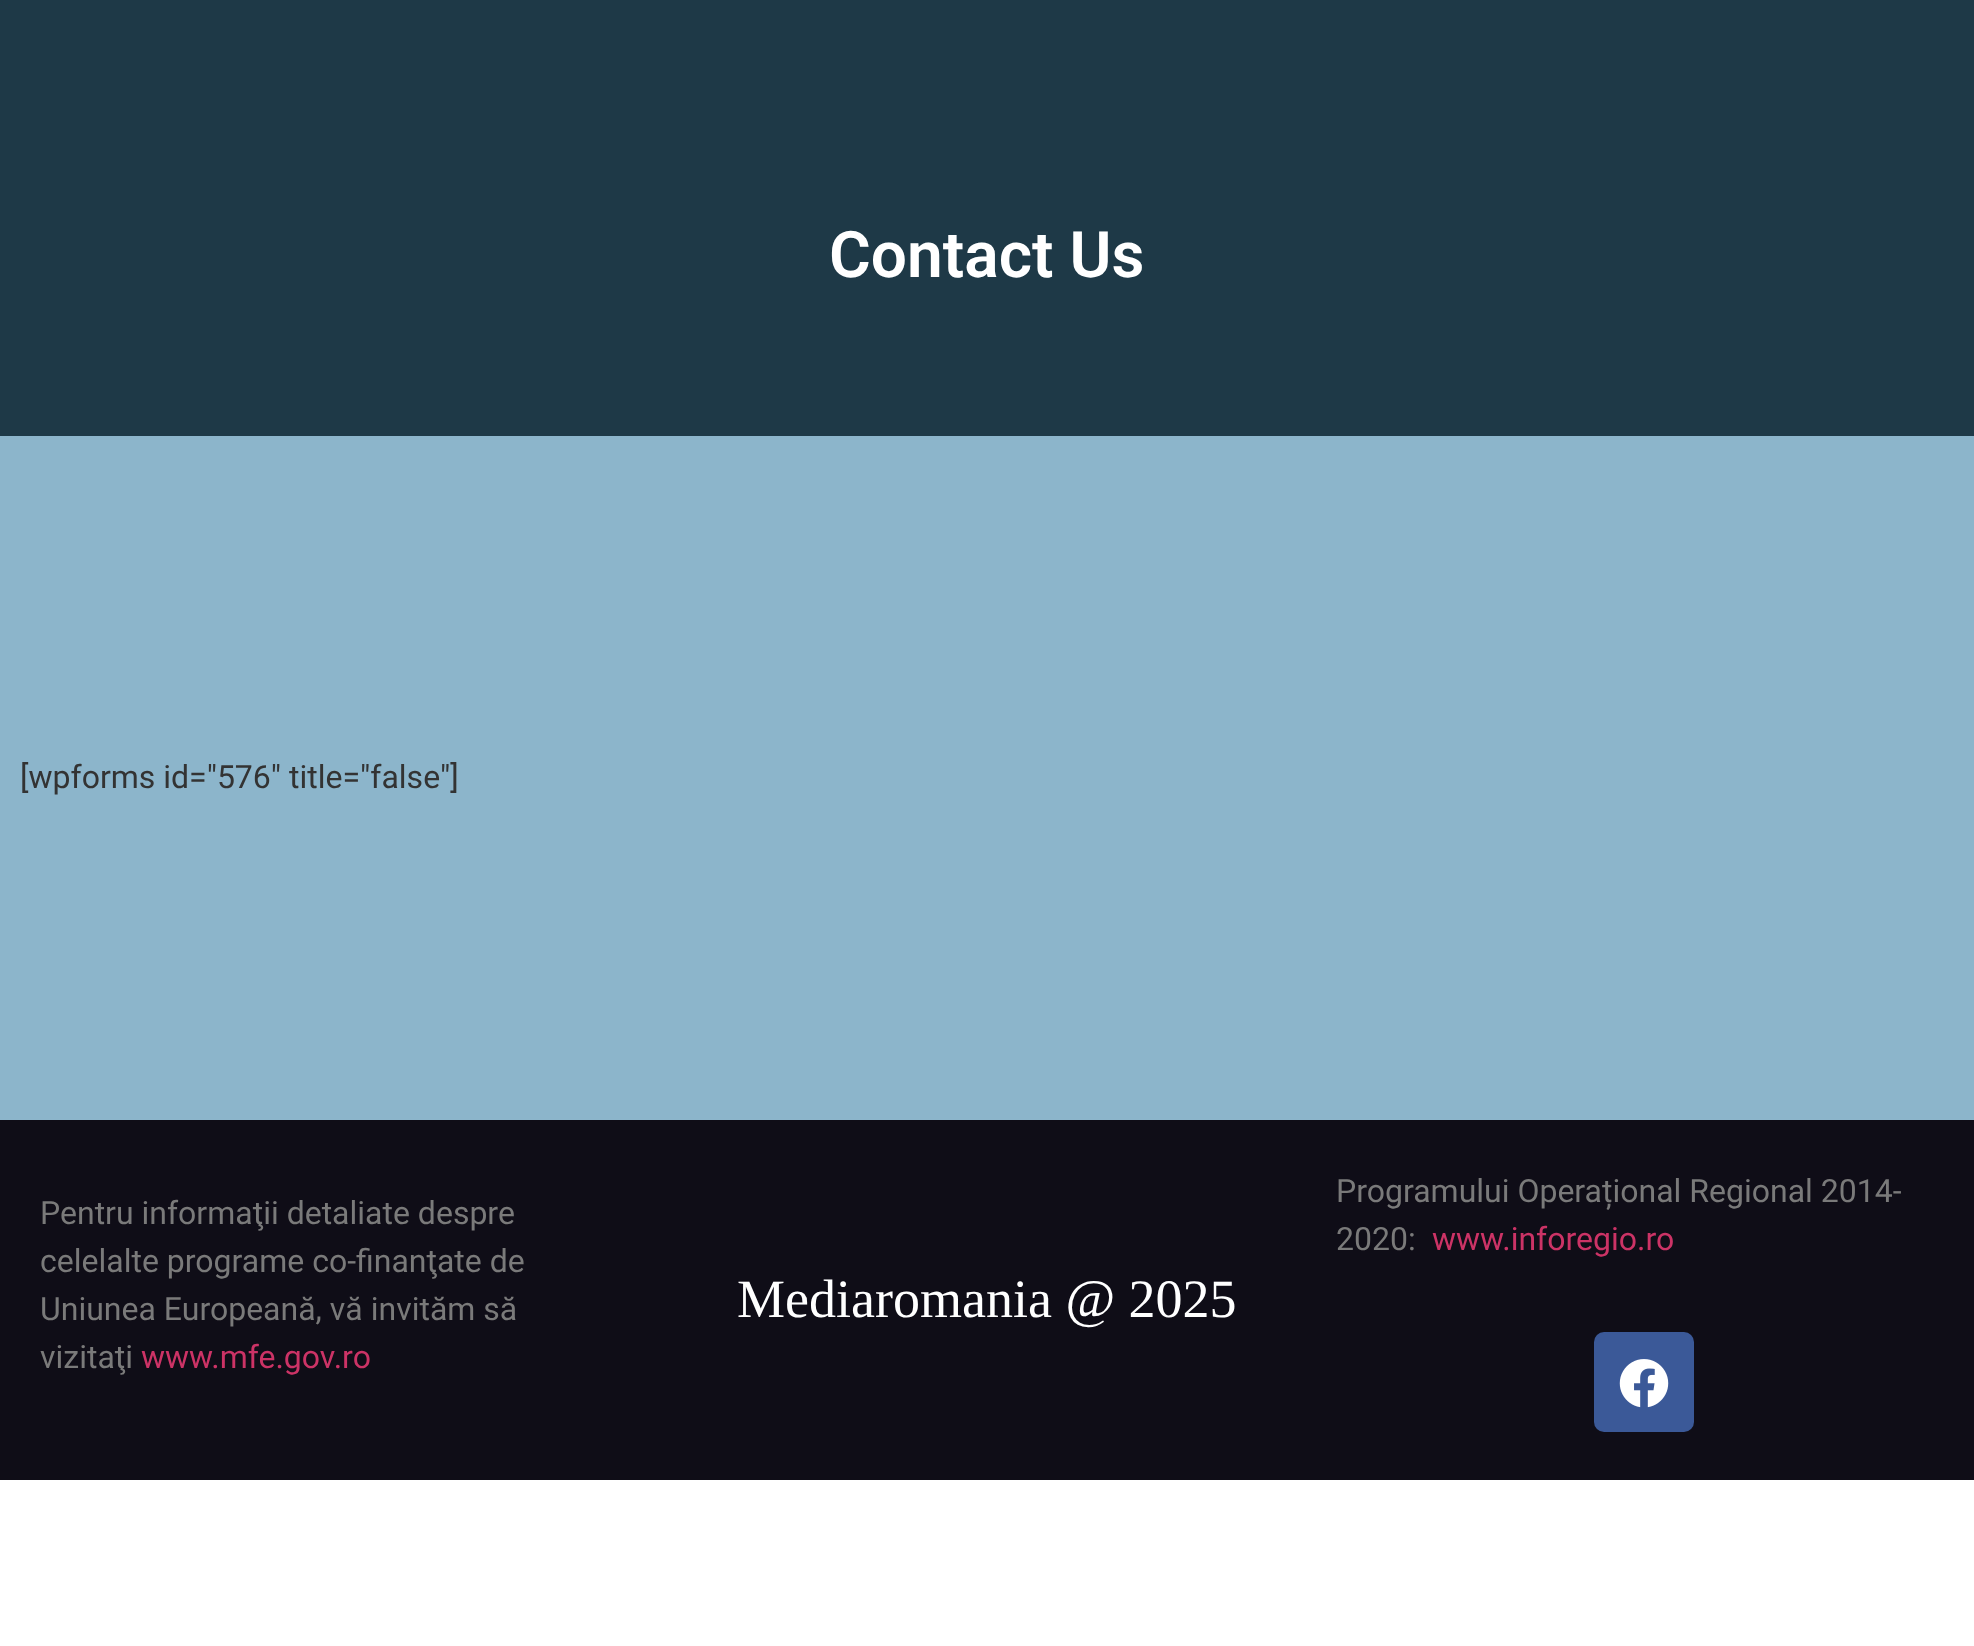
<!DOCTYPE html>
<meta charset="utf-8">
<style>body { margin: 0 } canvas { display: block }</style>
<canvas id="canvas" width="1974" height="1646"></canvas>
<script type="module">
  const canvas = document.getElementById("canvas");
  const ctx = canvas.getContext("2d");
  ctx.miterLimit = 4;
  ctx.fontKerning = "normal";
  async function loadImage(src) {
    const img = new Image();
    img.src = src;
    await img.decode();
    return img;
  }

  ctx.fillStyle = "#ffffff";
  ctx.fillRect(0, 0, 1974, 1646);
  ctx.fillStyle = "#1e3947";
  ctx.fillRect(0, 0, 1974, 436);
  ctx.font = "600 64px Roboto";
  ctx.fillStyle = "#ffffff";
  ctx.fillText("Contact Us", 829, 277);
  ctx.fillStyle = "#8cb5cb";
  ctx.fillRect(0, 436, 1974, 684);
  ctx.font = "32px Roboto";
  ctx.fillStyle = "#333333";
  ctx.fillText("[wpforms id=\"576\" title=\"false\"]", 20, 788);
  ctx.fillStyle = "#0f0d17";
  ctx.fillRect(0, 1120, 1974, 360);
  ctx.fillStyle = "#7a7a7a";
  ctx.fillText("Pentru informaţii detaliate despre", 40, 1224);
  ctx.fillText("celelalte programe co-finanţate de", 40, 1272);
  ctx.fillText("Uniunea Europeană, vă invităm să", 40, 1320);
  ctx.fillText("vizitaţi", 40, 1368);
  ctx.fillStyle = "#cc3366";
  ctx.fillText("www.mfe.gov.ro", 141, 1368);
  ctx.font = "54px Liberation Serif";
  ctx.fillStyle = "#ffffff";
  ctx.fillText("Mediaromania @ 2025", 737, 1317);
  ctx.font = "32px Roboto";
  ctx.fillStyle = "#7a7a7a";
  ctx.fillText("Programului Operațional Regional 2014-", 1336, 1202);
  ctx.fillText("2020:", 1336, 1250);
  ctx.fillStyle = "#cc3366";
  ctx.fillText("www.inforegio.ro", 1432, 1250);
  ctx.fillStyle = "#3b5998";
  ctx.beginPath();
  ctx.roundRect(1594, 1332, 100, 100, 10);
  ctx.fill();
  ctx.drawImage(await loadImage("img1.png"), 1619, 1359, 50, 49);
</script>
